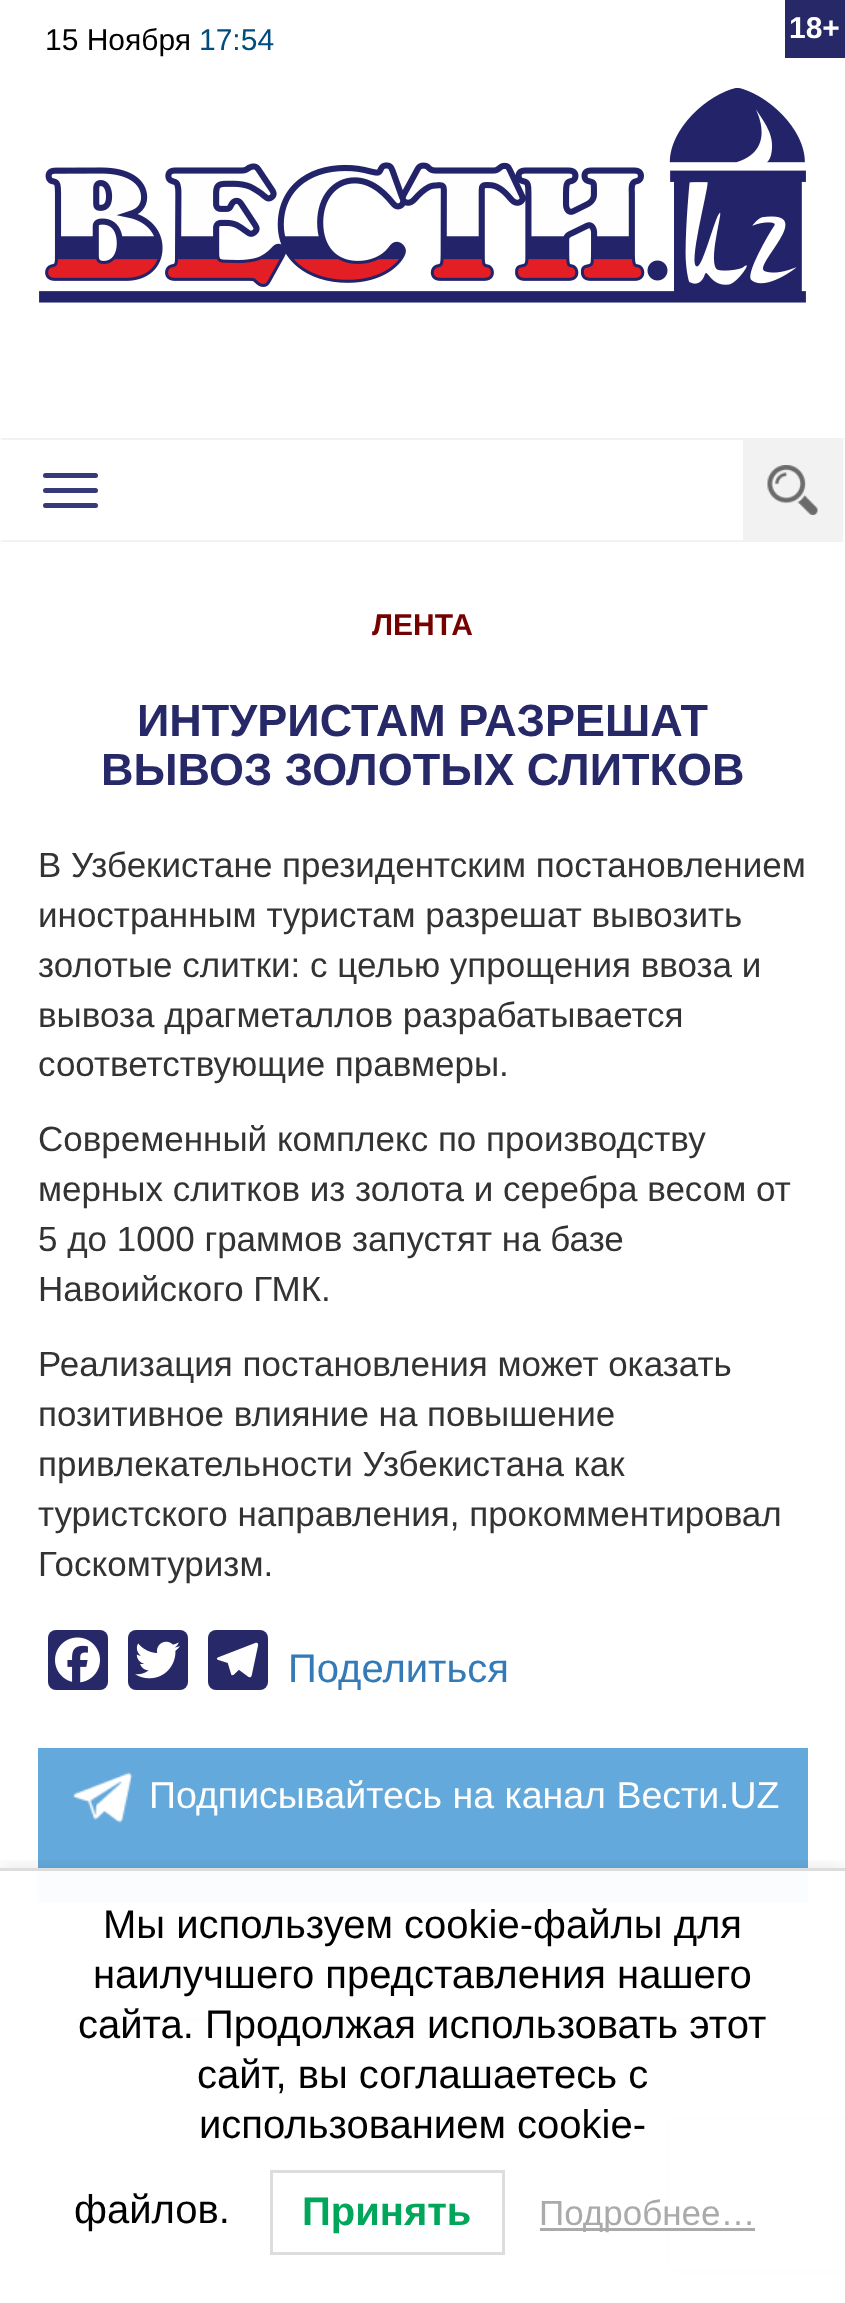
<!DOCTYPE html>
<meta charset="utf-8">
<style>body { margin: 0 } canvas { display: block }</style>
<canvas id="canvas" width="845" height="2303"></canvas>
<script type="module">
  const canvas = document.getElementById("canvas");
  const ctx = canvas.getContext("2d");
  ctx.miterLimit = 4;
  ctx.fontKerning = "normal";
  async function loadImage(src) {
    const img = new Image();
    img.src = src;
    await img.decode();
    return img;
  }

  ctx.fillStyle = "#ffffff";
  ctx.fillRect(0, 0, 845, 2303);
  ctx.font = "30px Liberation Sans";
  ctx.fillStyle = "#000000";
  ctx.fillText("15 Ноября", 45, 50);
  ctx.fillStyle = "#004c7c";
  ctx.fillText("17:54", 199, 50);
  ctx.drawImage(await loadImage("img1.png"), 39, 88, 767, 215);
  ctx.fillStyle = "#272867";
  ctx.fillRect(785, 0, 60, 58);
  ctx.font = "bold 30px Liberation Sans";
  ctx.fillStyle = "#ffffff";
  ctx.fillText("18+", 789, 38);
  ctx.fillStyle = "#f2f2f2";
  ctx.beginPath();
  ctx.moveTo(0, 438);
  ctx.lineTo(845, 438);
  ctx.lineTo(842, 440);
  ctx.lineTo(2, 440);
  ctx.closePath();
  ctx.fill();
  ctx.beginPath();
  ctx.moveTo(845, 542);
  ctx.lineTo(0, 542);
  ctx.lineTo(2, 540);
  ctx.lineTo(842, 540);
  ctx.closePath();
  ctx.fill();
  ctx.fillStyle = "#383978";
  ctx.beginPath();
  ctx.roundRect(43, 473, 55, 5, 2.5);
  ctx.fill();
  ctx.beginPath();
  ctx.roundRect(43, 488, 55, 5, 2.5);
  ctx.fill();
  ctx.beginPath();
  ctx.roundRect(43, 503, 55, 5, 2.5);
  ctx.fill();
  ctx.fillStyle = "#f2f2f2";
  ctx.fillRect(743, 440, 100, 100);
  ctx.drawImage(await loadImage("img2.png"), 767, 465, 51, 50);
  ctx.fillStyle = "#760101";
  ctx.fillText("ЛЕНТА", 372, 635);
  ctx.font = "bold 45px Liberation Sans";
  ctx.fillStyle = "#272867";
  ctx.fillText("ИНТУРИСТАМ РАЗРЕШАТ", 137, 736);
  ctx.fillText("ВЫВОЗ ЗОЛОТЫХ СЛИТКОВ", 101, 785);
  ctx.font = "35px Liberation Sans";
  ctx.fillStyle = "#333333";
  ctx.fillText("В Узбекистане президентским постановлением", 38, 877);
  ctx.fillText("иностранным туристам разрешат вывозить", 38, 927);
  ctx.fillText("золотые слитки: с целью упрощения ввоза и", 38, 977);
  ctx.fillText("вывоза драгметаллов разрабатывается", 38, 1027);
  ctx.fillText("соответствующие правмеры.", 38, 1076);
  ctx.fillText("Современный комплекс по производству", 38, 1151);
  ctx.fillText("мерных слитков из золота и серебра весом от", 38, 1201);
  ctx.fillText("5 до 1000 граммов запустят на базе", 38, 1251);
  ctx.fillText("Навоийского ГМК.", 38, 1301);
  ctx.fillText("Реализация постановления может оказать", 38, 1376);
  ctx.fillText("позитивное влияние на повышение", 38, 1426);
  ctx.fillText("привлекательности Узбекистана как", 38, 1476);
  ctx.fillText("туристского направления, прокомментировал", 38, 1526);
  ctx.fillText("Госкомтуризм.", 38, 1576);
  ctx.fillStyle = "#272867";
  ctx.beginPath();
  ctx.roundRect(48, 1630, 60, 60, 8);
  ctx.fill();
  ctx.drawImage(await loadImage("img3.png"), 55, 1637, 45, 46);
  ctx.beginPath();
  ctx.roundRect(128, 1630, 60, 60, 8);
  ctx.fill();
  ctx.drawImage(await loadImage("img4.png"), 135, 1641, 45, 38);
  ctx.beginPath();
  ctx.roundRect(208, 1630, 60, 60, 8);
  ctx.fill();
  ctx.drawImage(await loadImage("img5.png"), 216, 1642, 43, 36);
  ctx.font = "40px Liberation Sans";
  ctx.fillStyle = "#337ab7";
  ctx.fillText("Поделиться", 288, 1682);
  ctx.fillStyle = "#64a9dc";
  ctx.fillRect(38, 1748, 770, 155);
  ctx.drawImage(await loadImage("img6.png"), 72, 1772, 61, 51);
  ctx.font = "37.5px Liberation Sans";
  ctx.fillStyle = "#ffffff";
  ctx.fillText("Подписывайтесь на канал Вести.UZ", 149, 1808);
  ctx.fillStyle = "#f4f4f4";
  ctx.fillRect(75, 1940, 695, 15);
  ctx.fillStyle = "#bbbbbb";
  ctx.fillRect(75, 2018, 695, 3);
  ctx.save();
  ctx.beginPath();
  ctx.rect(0, 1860, 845, 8);
  ctx.clip();
  ctx.fillStyle = "rgba(0, 0, 0, 0.1)";
  ctx.filter = "blur(10px)";
  ctx.beginPath();
  ctx.rect(0, 1868, 845, 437);
  ctx.fill();
  ctx.filter = "none";
  ctx.restore();
  ctx.save();
  ctx.beginPath();
  ctx.moveTo(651, 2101);
  ctx.lineTo(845, 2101);
  ctx.lineTo(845, 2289);
  ctx.lineTo(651, 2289);
  ctx.closePath();
  ctx.moveTo(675, 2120);
  ctx.lineTo(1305, 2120);
  ctx.bezierCurveTo(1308, 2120, 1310, 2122, 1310, 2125);
  ctx.lineTo(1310, 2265);
  ctx.bezierCurveTo(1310, 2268, 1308, 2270, 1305, 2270);
  ctx.lineTo(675, 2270);
  ctx.bezierCurveTo(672, 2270, 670, 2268, 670, 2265);
  ctx.lineTo(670, 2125);
  ctx.bezierCurveTo(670, 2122, 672, 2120, 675, 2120);
  ctx.closePath();
  ctx.clip("evenodd");
  ctx.fillStyle = "#808080";
  ctx.filter = "blur(6px)";
  ctx.beginPath();
  ctx.roundRect(670, 2120, 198, 150, 5);
  ctx.fill();
  ctx.filter = "none";
  ctx.restore();
  ctx.fillStyle = "rgba(255, 255, 255, 0.97)";
  ctx.fillRect(38, 1871, 807, 411);
  ctx.fillStyle = "#dddddd";
  ctx.fillRect(0, 1868, 845, 3);
  ctx.font = "40px Liberation Sans";
  ctx.fillStyle = "#000000";
  ctx.fillText("Мы используем cookie-файлы для", 103, 1938);
  ctx.fillText("наилучшего представления нашего", 93, 1988);
  ctx.fillText("сайта. Продолжая использовать этот", 78, 2038);
  ctx.fillText("сайт, вы соглашаетесь с", 197, 2088);
  ctx.fillText("использованием cookie-", 199, 2138);
  ctx.fillText("файлов.", 74, 2223);
  ctx.strokeStyle = "#dddddd";
  ctx.lineWidth = 3;
  ctx.strokeRect(271.5, 2171.5, 232, 82);
  ctx.font = "bold 40px Liberation Sans";
  ctx.fillStyle = "#00a65a";
  ctx.fillText("Принять", 302, 2225);
  ctx.fillStyle = "#aaaaaa";
  ctx.fillRect(540, 2228, 215, 3);
  ctx.font = "35px Liberation Sans";
  ctx.fillText("Подробнее…", 539, 2225);
</script>
